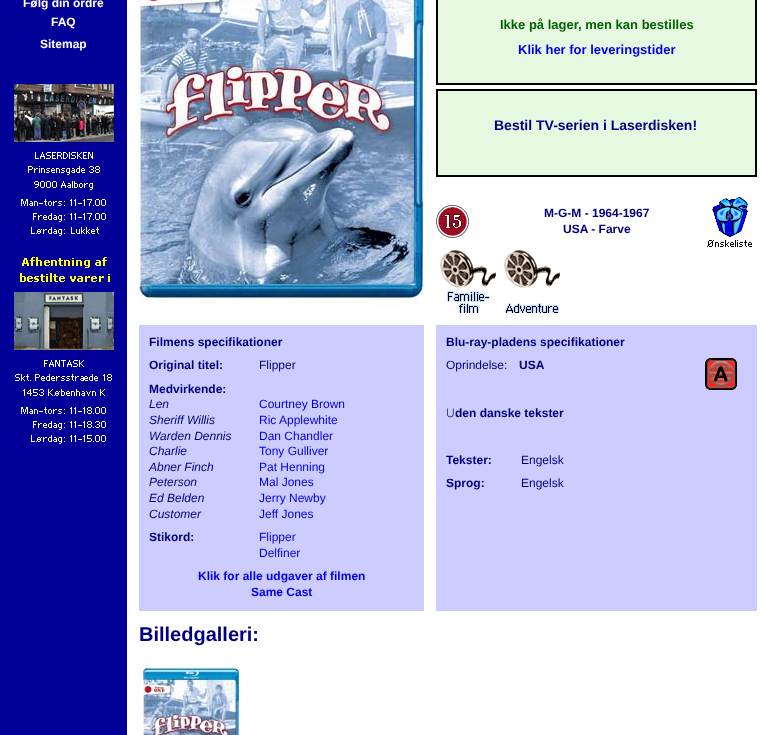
<!DOCTYPE html>
<meta charset="utf-8">
<style>body { margin: 0 } canvas { display: block }</style>
<canvas id="canvas" width="763" height="735"></canvas>
<script type="module">
  const canvas = document.getElementById("canvas");
  const ctx = canvas.getContext("2d");
  ctx.miterLimit = 4;
  ctx.fontKerning = "normal";
  async function loadImage(src) {
    const img = new Image();
    img.src = src;
    await img.decode();
    return img;
  }

  ctx.fillStyle = "#ffffff";
  ctx.fillRect(0, 0, 763, 735);
  ctx.fillStyle = "#000099";
  ctx.fillRect(0, 0, 127, 735);
  ctx.font = "bold 12px Liberation Sans";
  ctx.fillStyle = "#ffffff";
  ctx.fillText("Følg din ordre", 23, 7);
  ctx.fillText("FAQ", 51, 26);
  ctx.fillText("Sitemap", 40, 48);
  ctx.drawImage(await loadImage("img1.png"), 14, 84, 100, 152);
  ctx.drawImage(await loadImage("img2.png"), 14, 257, 100, 187);
  ctx.drawImage(await loadImage("img3.png"), 139, 0, 285, 305);
  ctx.fillStyle = "#e6f8e0";
  ctx.fillRect(438, 0, 317, 83);
  ctx.strokeStyle = "#000000";
  ctx.strokeRect(436.5, -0.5, 320, 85);
  ctx.strokeRect(437.5, -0.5, 318, 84);
  ctx.font = "bold 13px Liberation Sans";
  ctx.fillStyle = "#006400";
  ctx.fillText("Ikke på lager, men kan bestilles", 500, 29);
  ctx.fillStyle = "#0000ee";
  ctx.fillText("Klik her for leveringstider", 518, 54);
  ctx.fillStyle = "#e6f8e0";
  ctx.fillRect(438, 91, 317, 84);
  ctx.strokeRect(436.5, 89.5, 320, 87);
  ctx.strokeRect(437.5, 90.5, 318, 85);
  ctx.font = "bold 14px Liberation Sans";
  ctx.fillStyle = "#000080";
  ctx.fillText("Bestil TV-serien i Laserdisken!", 494, 130);
  ctx.drawImage(await loadImage("img4.png"), 436, 205, 33, 33);
  ctx.font = "bold 12px Liberation Sans";
  ctx.fillText("M-G-M - 1964-1967", 544, 217);
  ctx.fillText("USA - Farve", 563, 233);
  ctx.drawImage(await loadImage("img5.png"), 707, 197, 45, 50);
  ctx.drawImage(await loadImage("img6.png"), 440, 249, 56, 64);
  ctx.drawImage(await loadImage("img7.png"), 504, 249, 56, 64);
  ctx.fillStyle = "#ccccff";
  ctx.fillRect(139, 325, 285, 286);
  ctx.fillStyle = "#000080";
  ctx.fillText("Filmens specifikationer", 149, 346);
  ctx.fillText("Original titel:", 149, 369);
  ctx.font = "12px Liberation Sans";
  ctx.fillText("Flipper", 259, 369);
  ctx.font = "bold 12px Liberation Sans";
  ctx.fillText("Medvirkende:", 149, 393);
  ctx.font = "italic 12px Liberation Sans";
  ctx.fillText("Len", 149, 408);
  ctx.font = "12px Liberation Sans";
  ctx.fillStyle = "#0000ee";
  ctx.fillText("Courtney Brown", 259, 408);
  ctx.font = "italic 12px Liberation Sans";
  ctx.fillStyle = "#000080";
  ctx.fillText("Sheriff Willis", 149, 424);
  ctx.font = "12px Liberation Sans";
  ctx.fillStyle = "#0000ee";
  ctx.fillText("Ric Applewhite", 259, 424);
  ctx.font = "italic 12px Liberation Sans";
  ctx.fillStyle = "#000080";
  ctx.fillText("Warden Dennis", 149, 440);
  ctx.font = "12px Liberation Sans";
  ctx.fillStyle = "#0000ee";
  ctx.fillText("Dan Chandler", 259, 440);
  ctx.font = "italic 12px Liberation Sans";
  ctx.fillStyle = "#000080";
  ctx.fillText("Charlie", 149, 455);
  ctx.font = "12px Liberation Sans";
  ctx.fillStyle = "#0000ee";
  ctx.fillText("Tony Gulliver", 259, 455);
  ctx.font = "italic 12px Liberation Sans";
  ctx.fillStyle = "#000080";
  ctx.fillText("Abner Finch", 149, 471);
  ctx.font = "12px Liberation Sans";
  ctx.fillStyle = "#0000ee";
  ctx.fillText("Pat Henning", 259, 471);
  ctx.font = "italic 12px Liberation Sans";
  ctx.fillStyle = "#000080";
  ctx.fillText("Peterson", 149, 486);
  ctx.font = "12px Liberation Sans";
  ctx.fillStyle = "#0000ee";
  ctx.fillText("Mal Jones", 259, 486);
  ctx.font = "italic 12px Liberation Sans";
  ctx.fillStyle = "#000080";
  ctx.fillText("Ed Belden", 149, 502);
  ctx.font = "12px Liberation Sans";
  ctx.fillStyle = "#0000ee";
  ctx.fillText("Jerry Newby", 259, 502);
  ctx.font = "italic 12px Liberation Sans";
  ctx.fillStyle = "#000080";
  ctx.fillText("Customer", 149, 518);
  ctx.font = "12px Liberation Sans";
  ctx.fillStyle = "#0000ee";
  ctx.fillText("Jeff Jones", 259, 518);
  ctx.font = "bold 12px Liberation Sans";
  ctx.fillStyle = "#000080";
  ctx.fillText("Stikord:", 149, 541);
  ctx.font = "12px Liberation Sans";
  ctx.fillStyle = "#0000ee";
  ctx.fillText("Flipper", 259, 541);
  ctx.fillText("Delfiner", 259, 557);
  ctx.font = "bold 12px Liberation Sans";
  ctx.fillText("Klik for alle udgaver af filmen", 198, 580);
  ctx.fillText("Same Cast", 251, 596);
  ctx.fillStyle = "#ccccff";
  ctx.fillRect(436, 325, 321, 286);
  ctx.fillStyle = "#000080";
  ctx.fillText("Blu-ray-pladens specifikationer", 446, 346);
  ctx.font = "12px Liberation Sans";
  ctx.fillText("Oprindelse:", 446, 369);
  ctx.font = "bold 12px Liberation Sans";
  ctx.fillText("USA", 519, 369);
  ctx.drawImage(await loadImage("img8.png"), 705, 358, 32, 32);
  ctx.font = "300 12px Noto Sans";
  ctx.fillText("U", 446, 417);
  ctx.font = "bold 12px Liberation Sans";
  ctx.fillText("den danske tekster", 455, 417);
  ctx.fillText("Tekster:", 446, 464);
  ctx.font = "12px Liberation Sans";
  ctx.fillText("Engelsk", 521, 464);
  ctx.font = "bold 12px Liberation Sans";
  ctx.fillText("Sprog:", 446, 487);
  ctx.font = "12px Liberation Sans";
  ctx.fillText("Engelsk", 521, 487);
  ctx.font = "bold 20px Liberation Sans";
  ctx.fillText("Billedgalleri:", 139, 641);
  ctx.drawImage(await loadImage("img9.png"), 143, 663, 96, 72);
</script>
